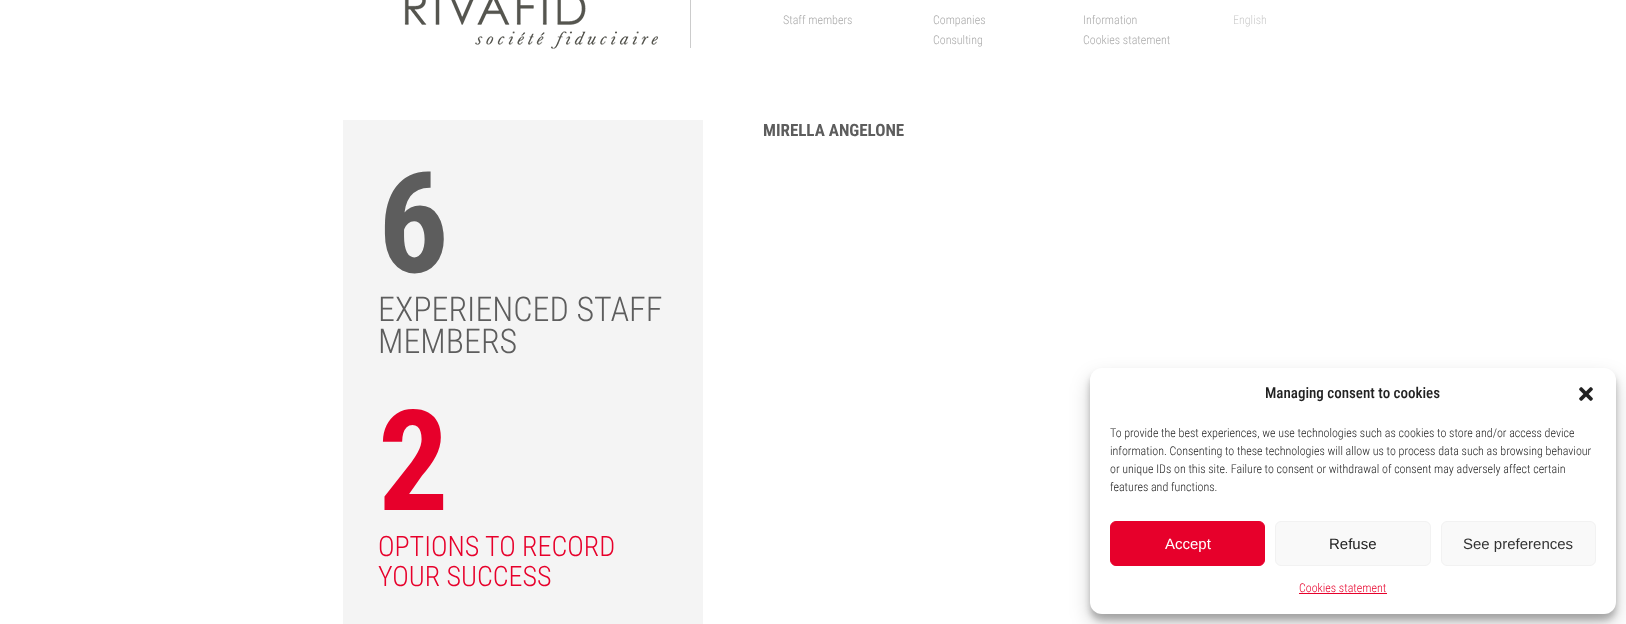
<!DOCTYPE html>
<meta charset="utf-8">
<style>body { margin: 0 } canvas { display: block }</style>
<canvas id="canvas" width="1626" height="624"></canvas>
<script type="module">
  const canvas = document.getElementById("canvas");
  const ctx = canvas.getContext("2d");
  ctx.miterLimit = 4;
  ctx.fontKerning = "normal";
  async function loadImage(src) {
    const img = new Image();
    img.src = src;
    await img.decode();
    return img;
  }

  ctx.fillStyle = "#ffffff";
  ctx.fillRect(0, 0, 1626, 624);
  ctx.drawImage(await loadImage("img1.png"), 404, 0, 287, 49);
  ctx.font = "300 12px Roboto Condensed";
  ctx.fillStyle = "#aaaaaa";
  ctx.fillText("Staff members", 783, 24);
  ctx.fillText("Companies", 933, 24);
  ctx.fillText("Consulting", 933, 44);
  ctx.fillText("Information", 1083, 24);
  ctx.fillText("Cookies statement", 1083, 44);
  ctx.fillStyle = "#cccccc";
  ctx.fillText("English", 1233, 24);
  ctx.font = "bold 17px Roboto Condensed";
  ctx.fillStyle = "#5d5d5d";
  ctx.fillText("MIRELLA ANGELONE", 763, 136);
  ctx.fillStyle = "#f4f4f4";
  ctx.fillRect(343, 120, 360, 504);
  ctx.font = "bold 140px Roboto Condensed";
  ctx.fillStyle = "#5d5d5d";
  ctx.fillText("6", 378, 272);
  ctx.font = "300 34px Roboto Condensed";
  ctx.fillText("EXPERIENCED STAFF", 378, 321);
  ctx.fillText("MEMBERS", 378, 353);
  ctx.font = "bold 140px Roboto Condensed";
  ctx.fillStyle = "#e7002b";
  ctx.fillText("2", 378, 510);
  ctx.font = "300 28px Roboto Condensed";
  ctx.fillText("OPTIONS TO RECORD", 378, 556);
  ctx.fillText("YOUR SUCCESS", 378, 586);
  ctx.fillStyle = "rgba(0, 0, 0, 0.23)";
  ctx.filter = "blur(3px)";
  ctx.beginPath();
  ctx.roundRect(1090, 374, 526, 246, 12);
  ctx.fill();
  ctx.filter = "none";
  ctx.fillStyle = "rgba(0, 0, 0, 0.19)";
  ctx.filter = "blur(10px)";
  ctx.beginPath();
  ctx.roundRect(1090, 378, 526, 246, 12);
  ctx.fill();
  ctx.filter = "none";
  ctx.fillStyle = "#ffffff";
  ctx.beginPath();
  ctx.roundRect(1090, 368, 526, 246, 12);
  ctx.fill();
  ctx.font = "500 15px Roboto Condensed";
  ctx.fillStyle = "#222222";
  ctx.fillText("Managing consent to cookies", 1265, 398);
  ctx.drawImage(await loadImage("img2.png"), 1579, 387, 14, 14);
  ctx.font = "300 12px Roboto Condensed";
  ctx.fillText("To provide the best experiences, we use technologies such as cookies to store and/or access device", 1110, 437);
  ctx.fillText("information. Consenting to these technologies will allow us to process data such as browsing behaviour", 1110, 455);
  ctx.fillText("or unique IDs on this site. Failure to consent or withdrawal of consent may adversely affect certain", 1110, 473);
  ctx.fillText("features and functions.", 1110, 491);
  ctx.fillStyle = "#e7002b";
  ctx.beginPath();
  ctx.roundRect(1110.5, 521.5, 154, 44, 5.5);
  ctx.fill();
  ctx.strokeStyle = "#e7002b";
  ctx.stroke();
  ctx.font = "15px Liberation Sans";
  ctx.fillStyle = "#ffffff";
  ctx.fillText("Accept", 1165, 549);
  ctx.fillStyle = "#f9f9f9";
  ctx.beginPath();
  ctx.roundRect(1275.5, 521.5, 155, 44, 5.5);
  ctx.fill();
  ctx.strokeStyle = "#f2f2f2";
  ctx.stroke();
  ctx.fillStyle = "#222222";
  ctx.fillText("Refuse", 1329, 549);
  ctx.fillStyle = "#f9f9f9";
  ctx.beginPath();
  ctx.roundRect(1441.5, 521.5, 154, 44, 5.5);
  ctx.fill();
  ctx.stroke();
  ctx.fillStyle = "#333333";
  ctx.fillText("See preferences", 1463, 549);
  ctx.font = "300 12px Roboto Condensed";
  ctx.fillStyle = "#e7002b";
  ctx.fillText("Cookies statement", 1299, 592);
  ctx.fillRect(1299, 593, 88, 1);
</script>
